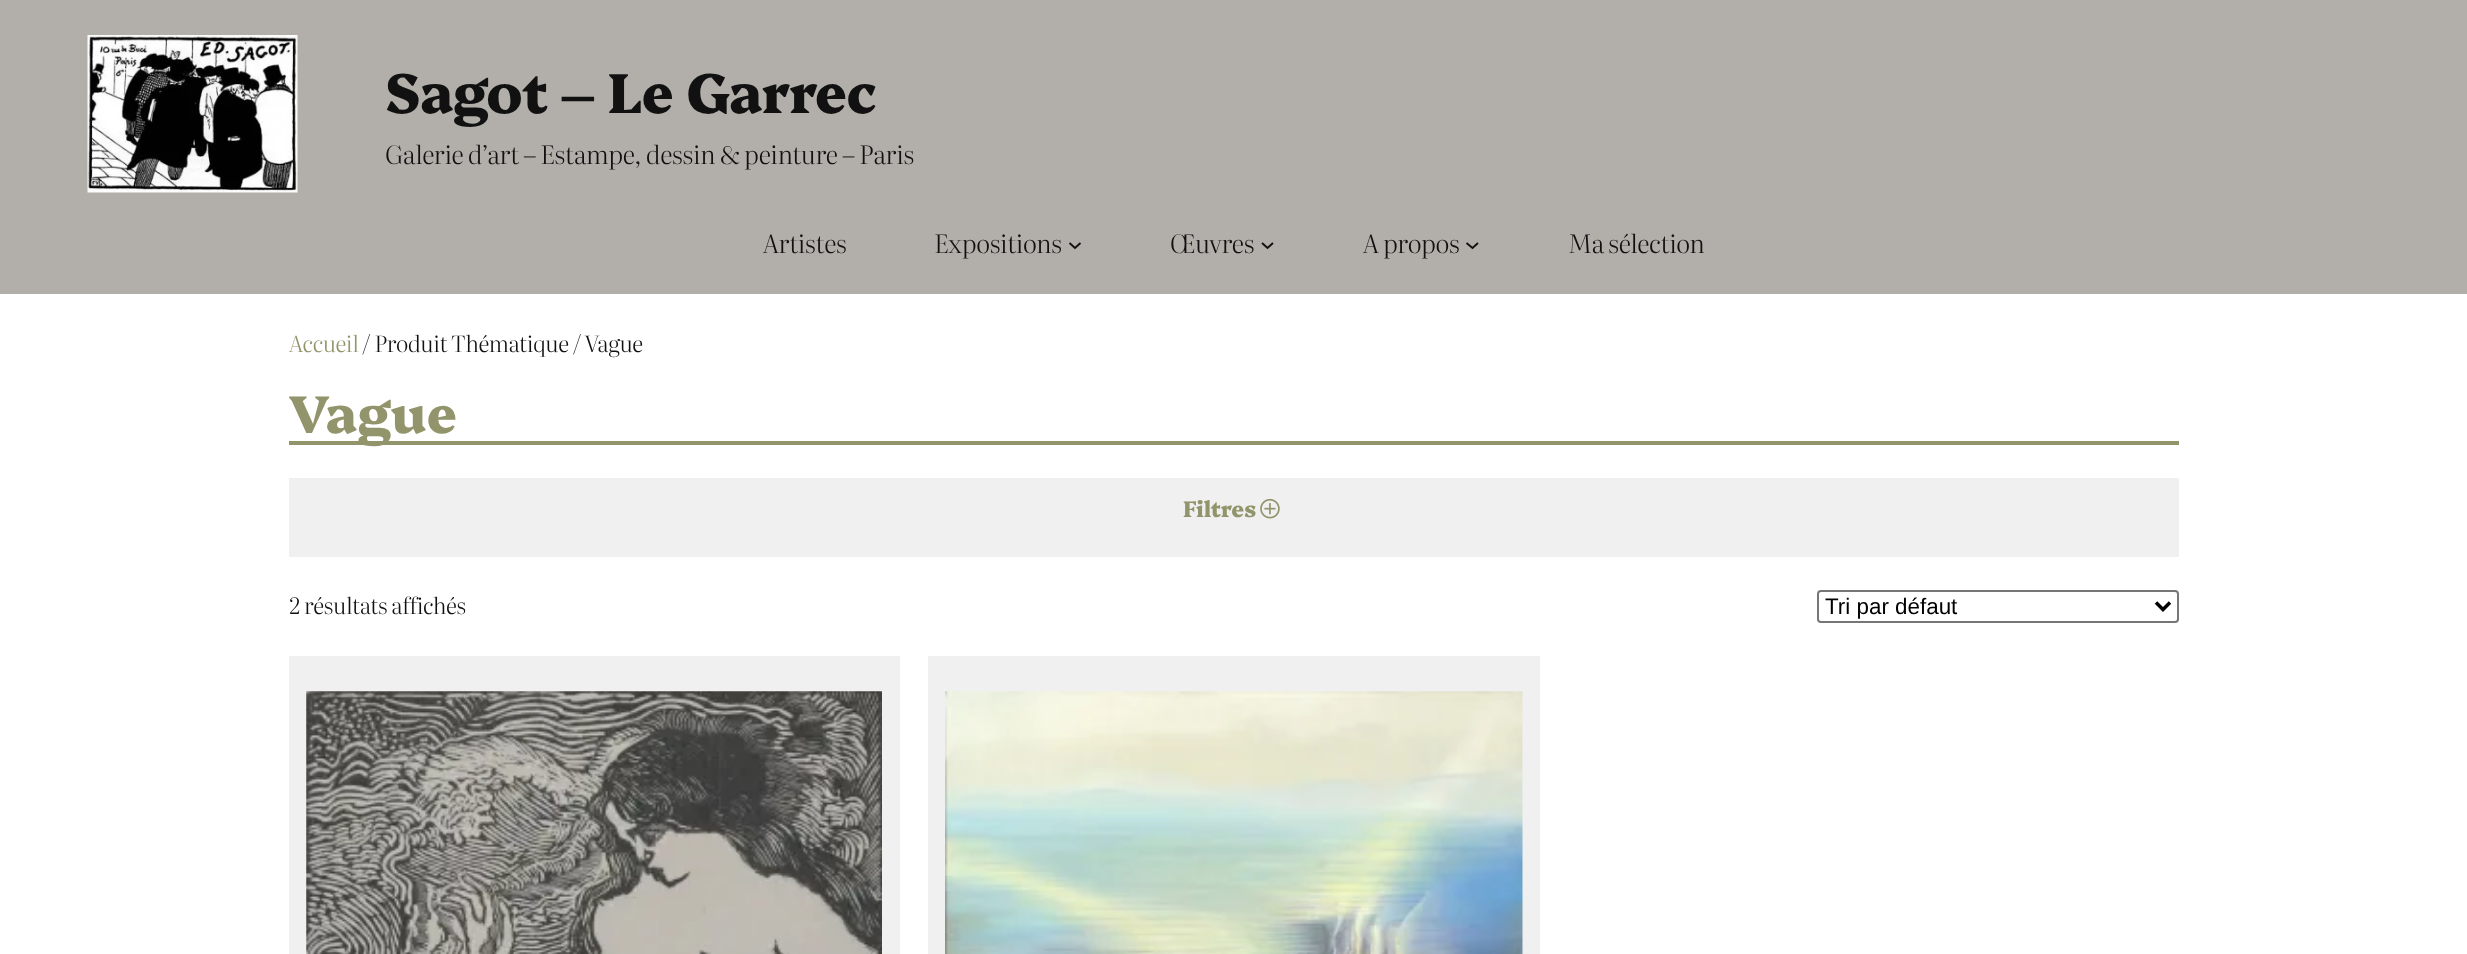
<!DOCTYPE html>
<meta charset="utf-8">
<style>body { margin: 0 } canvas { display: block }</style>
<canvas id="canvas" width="2467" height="954"></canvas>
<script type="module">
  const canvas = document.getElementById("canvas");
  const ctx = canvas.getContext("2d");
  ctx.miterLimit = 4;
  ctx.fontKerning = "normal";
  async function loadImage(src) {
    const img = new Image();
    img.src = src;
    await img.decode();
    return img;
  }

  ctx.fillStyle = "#ffffff";
  ctx.fillRect(0, 0, 2467, 954);
  ctx.fillStyle = "#b2afaa";
  ctx.fillRect(0, 0, 2467, 294);
  ctx.drawImage(await loadImage("img1.png"), 87, 35, 211, 158);
  ctx.letterSpacing = "-1px";
  ctx.font = "800 56px Platypi";
  ctx.fillStyle = "#111111";
  ctx.fillText("Sagot – Le Garrec", 385, 113);
  ctx.letterSpacing = "-0.4px";
  ctx.font = "300 25.2px Literata";
  ctx.fillText("Galerie d’art – Estampe, dessin & peinture – Paris", 385, 164);
  ctx.fillText("Artistes", 763, 253);
  ctx.fillText("Expositions", 934, 253);
  ctx.beginPath();
  ctx.moveTo(1069.5, 243);
  ctx.lineTo(1075, 248);
  ctx.lineTo(1080.5, 243);
  ctx.strokeStyle = "#111111";
  ctx.lineWidth = 1.9;
  ctx.stroke();
  ctx.fillText("Œuvres", 1170, 253);
  ctx.beginPath();
  ctx.moveTo(1262, 243);
  ctx.lineTo(1267.5, 248);
  ctx.lineTo(1273, 243);
  ctx.stroke();
  ctx.fillText("A propos", 1363, 253);
  ctx.beginPath();
  ctx.moveTo(1466.5, 243);
  ctx.lineTo(1472.5, 248);
  ctx.lineTo(1478, 243);
  ctx.stroke();
  ctx.fillText("Ma sélection", 1568, 253);
  ctx.font = "300 22.4px Literata";
  ctx.fillStyle = "#92946b";
  ctx.fillText("Accueil", 289, 352);
  ctx.fillStyle = "#111111";
  ctx.fillText("/ Produit Thématique / Vague", 362, 352);
  ctx.fillStyle = "#92946b";
  ctx.fillRect(289, 441, 1890, 4);
  ctx.letterSpacing = "-0.25px";
  ctx.font = "800 53px Platypi";
  ctx.fillText("Vague", 289, 433);
  ctx.fillStyle = "#f0f0f0";
  ctx.fillRect(289, 478, 1890, 79);
  ctx.font = "800 22.4px Platypi";
  ctx.fillStyle = "#92946b";
  ctx.fillText("Filtres", 1183, 517);
  ctx.drawImage(await loadImage("img2.png"), 1260, 498, 20, 21);
  ctx.letterSpacing = "-0.4px";
  ctx.font = "300 22.4px Literata";
  ctx.fillStyle = "#111111";
  ctx.fillText("2 résultats affichés", 289, 614);
  ctx.beginPath();
  ctx.roundRect(1818, 591, 360, 31, 3);
  ctx.strokeStyle = "#767676";
  ctx.lineWidth = 2;
  ctx.stroke();
  ctx.beginPath();
  ctx.moveTo(2156, 602.5);
  ctx.lineTo(2163, 609.5);
  ctx.lineTo(2170, 602.5);
  ctx.strokeStyle = "#000000";
  ctx.lineWidth = 3.5;
  ctx.stroke();
  ctx.letterSpacing = "0px";
  ctx.font = "22.4px Liberation Sans";
  ctx.fillStyle = "#000000";
  ctx.fillText("Tri par défaut", 1825, 614);
  ctx.fillStyle = "#f0f0f0";
  ctx.fillRect(289, 656, 611, 298);
  ctx.drawImage(await loadImage("img3.png"), 306, 691, 576, 263);
  ctx.fillRect(928, 656, 612, 298);
  ctx.drawImage(await loadImage("img4.png"), 945, 691, 578, 263);
</script>
